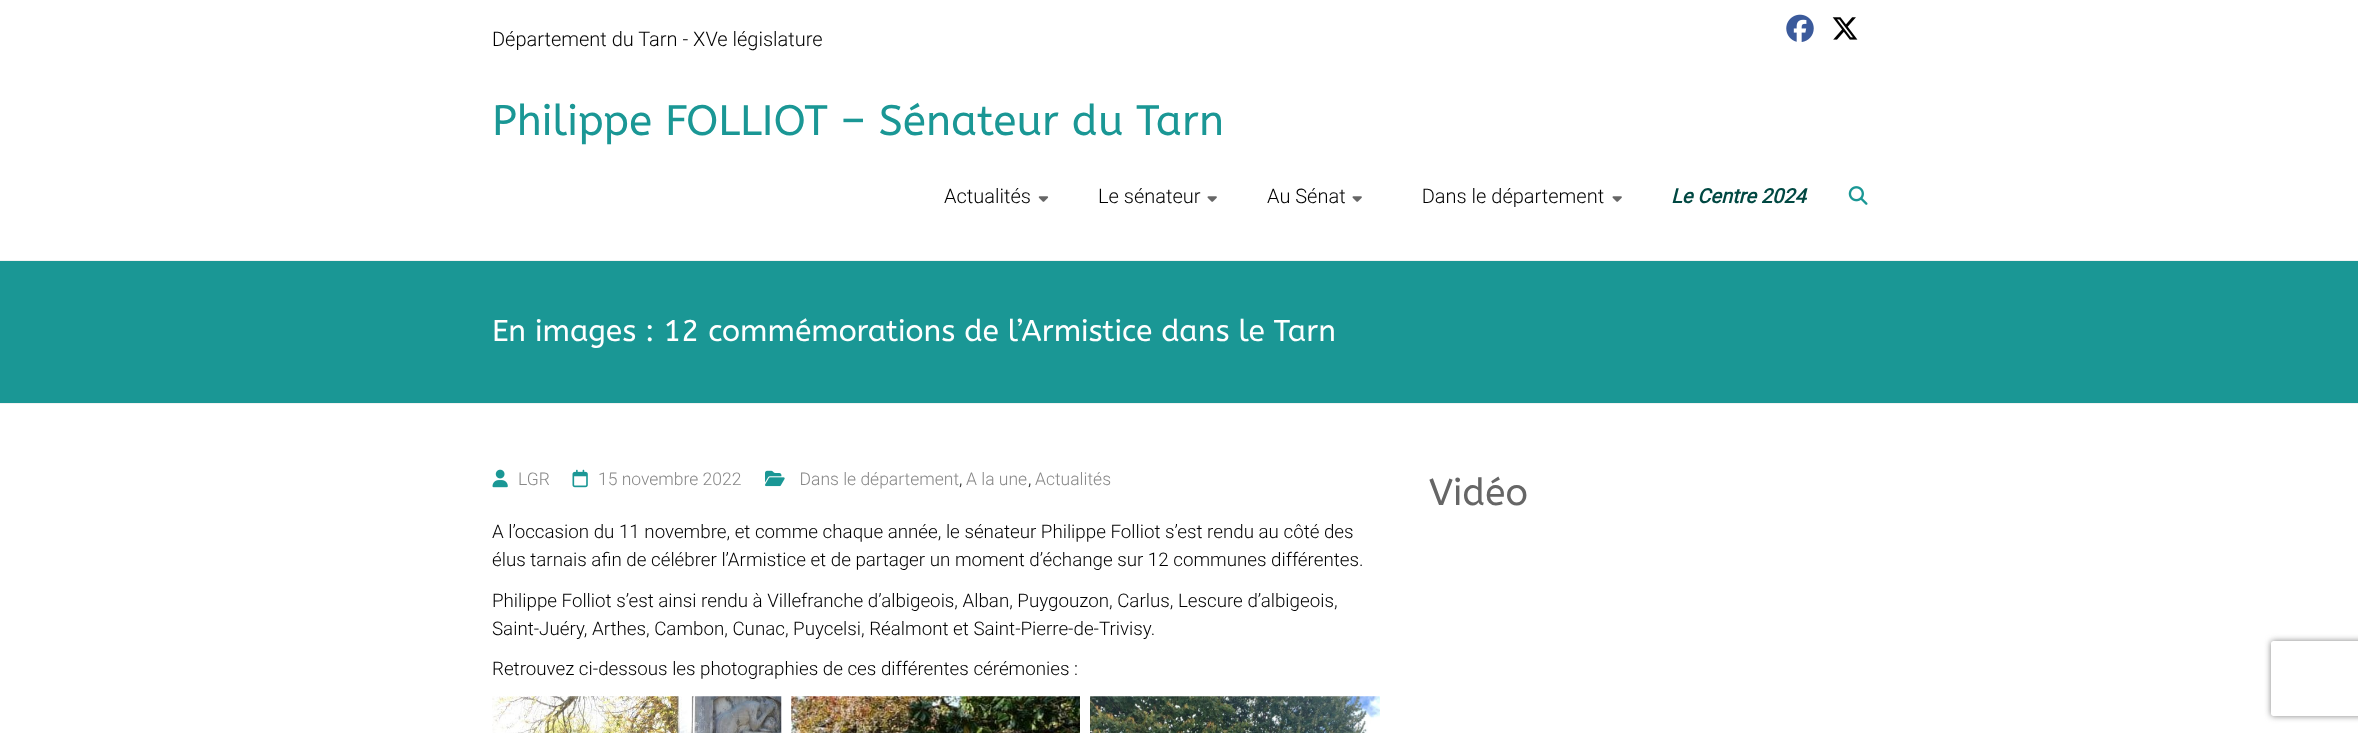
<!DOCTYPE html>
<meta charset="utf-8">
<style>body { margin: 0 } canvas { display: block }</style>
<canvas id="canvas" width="2358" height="733"></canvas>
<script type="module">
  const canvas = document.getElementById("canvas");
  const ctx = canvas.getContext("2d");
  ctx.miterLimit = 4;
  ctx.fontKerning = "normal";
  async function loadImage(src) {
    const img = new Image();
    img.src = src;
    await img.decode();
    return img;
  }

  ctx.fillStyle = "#ffffff";
  ctx.fillRect(0, 0, 2358, 733);
  ctx.fillStyle = "#f2f2f2";
  ctx.fillRect(0, 260, 2358, 1);
  ctx.font = "300 20px Roboto";
  ctx.fillStyle = "#000000";
  ctx.fillText("Département du Tarn - XVe législature", 492, 46);
  ctx.drawImage(await loadImage("img1.png"), 1786, 14, 28, 28);
  ctx.drawImage(await loadImage("img2.png"), 1832, 17, 26, 23);
  ctx.font = "42.5px ABeeZee";
  ctx.fillStyle = "#1a9795";
  ctx.fillText("Philippe FOLLIOT – Sénateur du Tarn", 492, 135);
  ctx.font = "300 20px Roboto";
  ctx.fillStyle = "#000000";
  ctx.fillText("Actualités", 944, 203);
  ctx.drawImage(await loadImage("img3.png"), 1038, 196, 11, 6);
  ctx.fillText("Le sénateur", 1098, 203);
  ctx.drawImage(await loadImage("img4.png"), 1207, 196, 10, 6);
  ctx.fillText("Au Sénat", 1267, 203);
  ctx.drawImage(await loadImage("img4.png"), 1352, 196, 10, 6);
  ctx.fillText("  Dans le département", 1412, 203);
  ctx.drawImage(await loadImage("img4.png"), 1612, 196, 10, 6);
  ctx.font = "italic bold 20px Roboto";
  ctx.fillStyle = "#004842";
  ctx.fillText("Le Centre 2024", 1671, 203);
  ctx.drawImage(await loadImage("img5.png"), 1848, 186, 20, 19);
  ctx.fillStyle = "#1a9795";
  ctx.fillRect(0, 261, 2358, 142);
  ctx.fillStyle = "#f2f2f2";
  ctx.fillRect(0, 403, 2358, 1);
  ctx.font = "30px ABeeZee";
  ctx.fillStyle = "#ffffff";
  ctx.fillText("En images : 12 commémorations de l’Armistice dans le Tarn", 492, 341);
  ctx.drawImage(await loadImage("img6.png"), 492, 469, 16, 19);
  ctx.font = "300 17.5px Roboto";
  ctx.fillStyle = "#888888";
  ctx.fillText("LGR", 518, 485);
  ctx.drawImage(await loadImage("img7.png"), 572, 469, 16, 19);
  ctx.fillText("15 novembre 2022", 598, 485);
  ctx.drawImage(await loadImage("img8.png"), 765, 470, 20, 17);
  ctx.fillText("  Dans le département", 791, 485);
  ctx.fillStyle = "#000000";
  ctx.fillText(",", 959, 485);
  ctx.fillStyle = "#888888";
  ctx.fillText("A la une", 966, 485);
  ctx.fillStyle = "#000000";
  ctx.fillText(",", 1028, 485);
  ctx.fillStyle = "#888888";
  ctx.fillText("Actualités", 1035, 485);
  ctx.font = "300 18.75px Roboto";
  ctx.fillStyle = "#000000";
  ctx.fillText("A l’occasion du 11 novembre, et comme chaque année, le sénateur Philippe Folliot s’est rendu au côté des", 492, 538);
  ctx.fillText("élus tarnais afin de célébrer l’Armistice et de partager un moment d’échange sur 12 communes différentes.", 492, 566);
  ctx.fillText("Philippe Folliot s’est ainsi rendu à Villefranche d’albigeois, Alban, Puygouzon, Carlus, Lescure d’albigeois,", 492, 607);
  ctx.fillText("Saint-Juéry, Arthes, Cambon, Cunac, Puycelsi, Réalmont et Saint-Pierre-de-Trivisy.", 492, 635);
  ctx.fillText("Retrouvez ci-dessous les photographies de ces différentes cérémonies :", 492, 675);
  ctx.drawImage(await loadImage("img9.png"), 492, 696, 290, 37);
  ctx.drawImage(await loadImage("img10.png"), 791, 696, 289, 37);
  ctx.drawImage(await loadImage("img11.png"), 1090, 696, 290, 37);
  ctx.font = "37.5px ABeeZee";
  ctx.fillStyle = "#666666";
  ctx.fillText("Vidéo", 1429, 505);
  ctx.save();
  ctx.beginPath();
  ctx.moveTo(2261, 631);
  ctx.lineTo(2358, 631);
  ctx.lineTo(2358, 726);
  ctx.lineTo(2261, 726);
  ctx.closePath();
  ctx.moveTo(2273.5, 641);
  ctx.lineTo(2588.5, 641);
  ctx.bezierCurveTo(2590, 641, 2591, 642, 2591, 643.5);
  ctx.lineTo(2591, 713.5);
  ctx.bezierCurveTo(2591, 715, 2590, 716, 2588.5, 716);
  ctx.lineTo(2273.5, 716);
  ctx.bezierCurveTo(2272, 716, 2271, 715, 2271, 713.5);
  ctx.lineTo(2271, 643.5);
  ctx.bezierCurveTo(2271, 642, 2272, 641, 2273.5, 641);
  ctx.closePath();
  ctx.clip("evenodd");
  ctx.fillStyle = "#808080";
  ctx.filter = "blur(3px)";
  ctx.beginPath();
  ctx.roundRect(2271, 641, 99, 75, 2.5);
  ctx.fill();
  ctx.filter = "none";
  ctx.restore();
</script>
